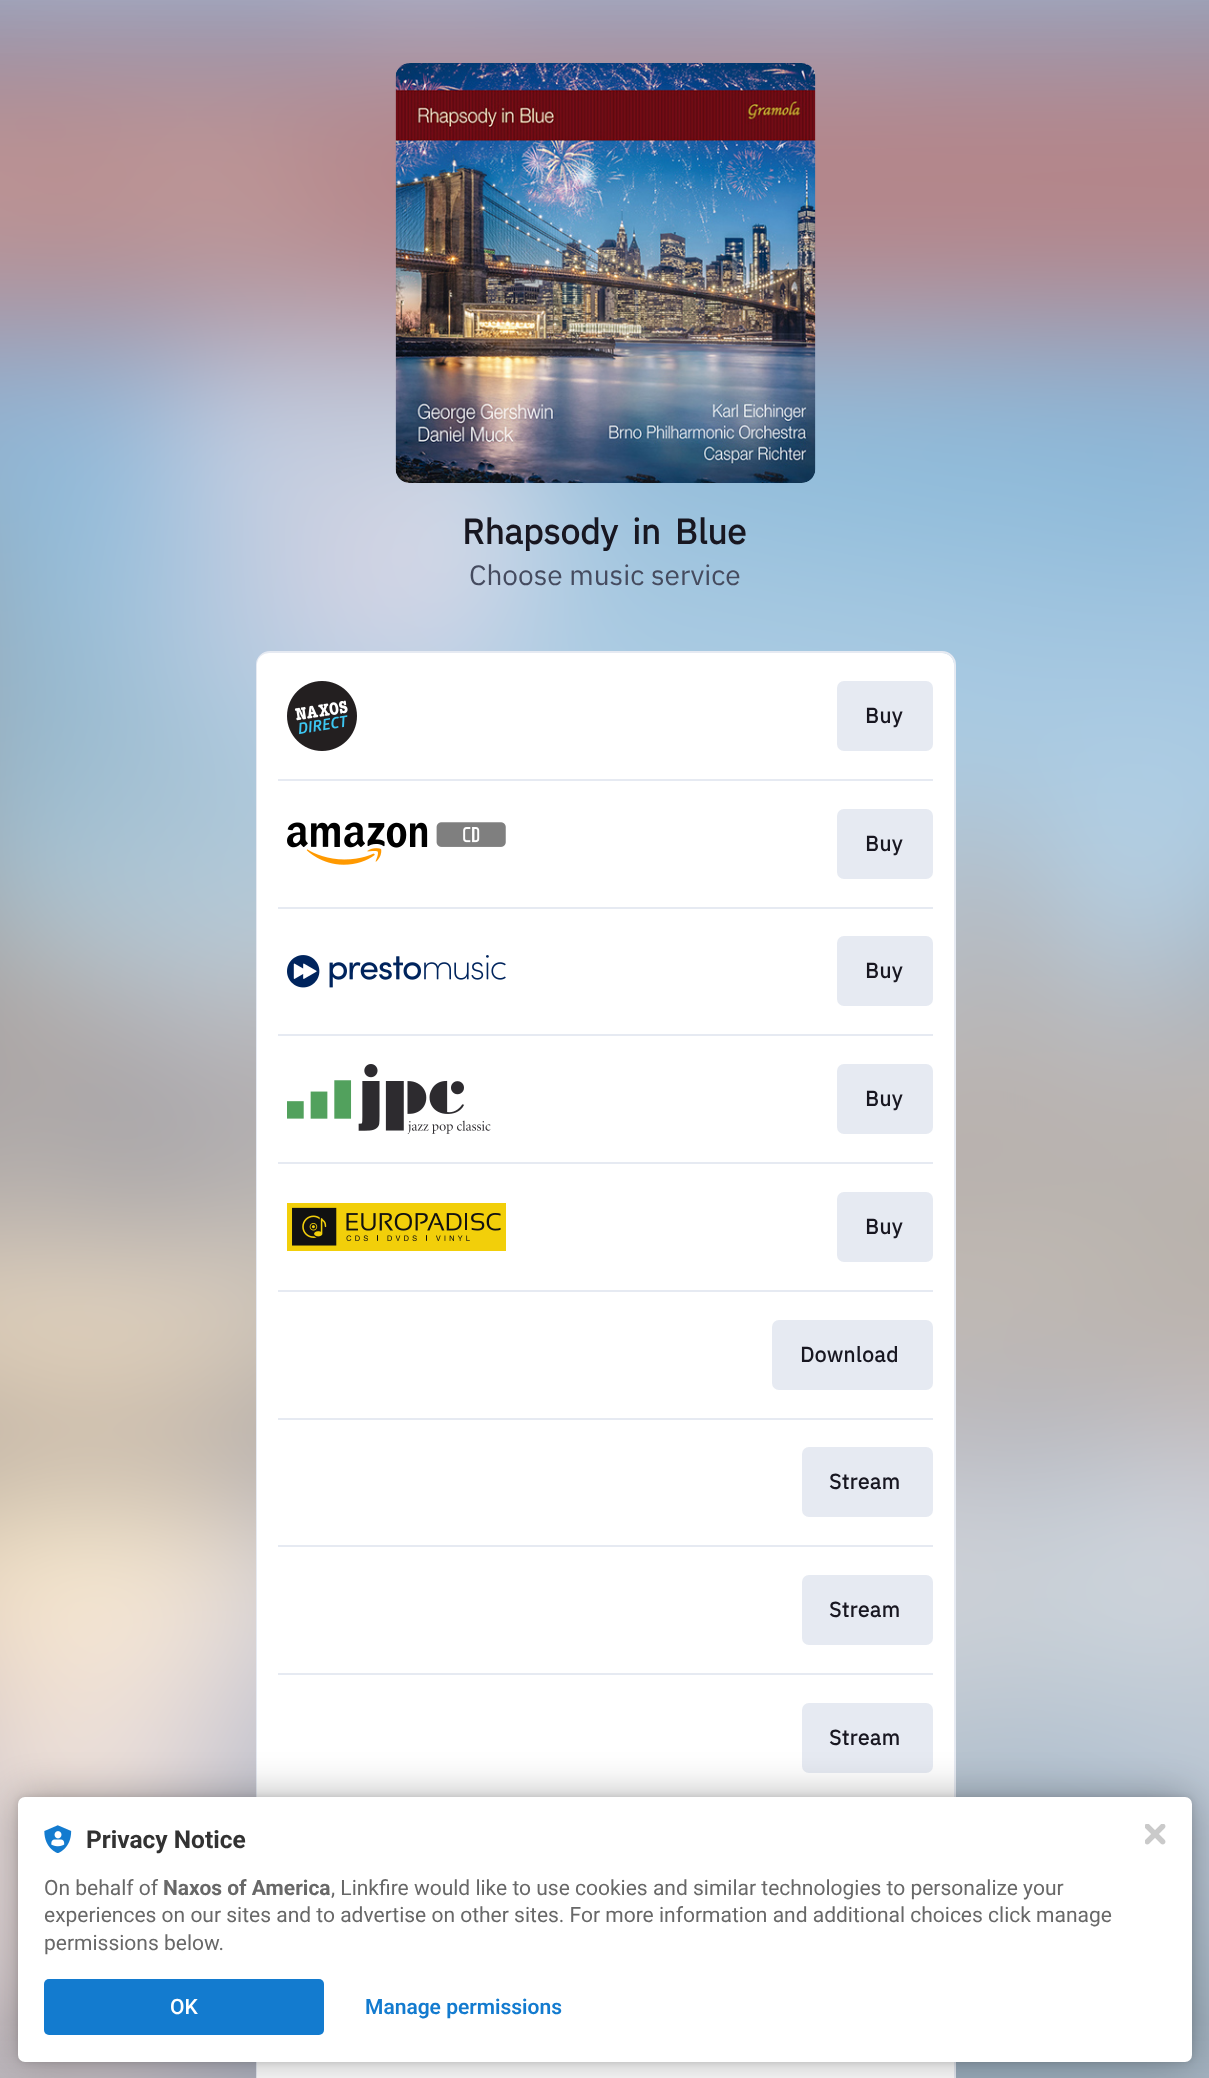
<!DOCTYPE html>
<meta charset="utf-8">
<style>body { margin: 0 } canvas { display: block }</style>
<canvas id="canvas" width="1209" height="2078"></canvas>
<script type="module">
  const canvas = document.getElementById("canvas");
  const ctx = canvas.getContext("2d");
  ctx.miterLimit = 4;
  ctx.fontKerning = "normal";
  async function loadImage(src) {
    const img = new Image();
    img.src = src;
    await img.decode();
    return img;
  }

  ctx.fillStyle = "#ffffff";
  ctx.fillRect(0, 0, 1209, 2078);
  ctx.drawImage(await loadImage("img1.png"), 0, 0, 1209, 2078);
  ctx.drawImage(await loadImage("img2.png"), 395, 63, 421, 420);
  ctx.wordSpacing = "6px";
  ctx.font = "bold 35px IBM Plex Sans";
  ctx.fillStyle = "#181721";
  ctx.fillText("Rhapsody in Blue", 462, 544);
  ctx.wordSpacing = "0px";
  ctx.font = "28px IBM Plex Sans";
  ctx.fillStyle = "#454b5f";
  ctx.fillText("Choose music service", 469, 585);
  ctx.beginPath();
  ctx.roundRect(257, 652, 698, 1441, 13);
  ctx.strokeStyle = "#e6eaf2";
  ctx.lineWidth = 2;
  ctx.stroke();
  ctx.fillStyle = "#ffffff";
  ctx.beginPath();
  ctx.roundRect(257, 653, 697, 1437, 12);
  ctx.fill();
  ctx.drawImage(await loadImage("img3.png"), 287, 681, 70, 70);
  ctx.fillStyle = "#e6eaf2";
  ctx.beginPath();
  ctx.roundRect(837, 681, 96, 70, 7);
  ctx.fill();
  ctx.letterSpacing = "0.5px";
  ctx.font = "bold 21px IBM Plex Sans";
  ctx.fillStyle = "#181721";
  ctx.fillText("Buy", 865, 723);
  ctx.fillStyle = "#e6eaf2";
  ctx.fillRect(278, 779, 655, 2);
  ctx.drawImage(await loadImage("img4.png"), 287, 822, 219, 43);
  ctx.beginPath();
  ctx.roundRect(837, 809, 96, 70, 7);
  ctx.fill();
  ctx.fillStyle = "#181721";
  ctx.fillText("Buy", 865, 851);
  ctx.fillStyle = "#e6eaf2";
  ctx.fillRect(278, 907, 655, 2);
  ctx.drawImage(await loadImage("img5.png"), 287, 955, 219, 33);
  ctx.beginPath();
  ctx.roundRect(837, 936, 96, 70, 7);
  ctx.fill();
  ctx.fillStyle = "#181721";
  ctx.fillText("Buy", 865, 978);
  ctx.fillStyle = "#e6eaf2";
  ctx.fillRect(278, 1034, 655, 2);
  ctx.drawImage(await loadImage("img6.png"), 287, 1064, 204, 70);
  ctx.beginPath();
  ctx.roundRect(837, 1064, 96, 70, 7);
  ctx.fill();
  ctx.fillStyle = "#181721";
  ctx.fillText("Buy", 865, 1106);
  ctx.fillStyle = "#e6eaf2";
  ctx.fillRect(278, 1162, 655, 2);
  ctx.drawImage(await loadImage("img7.png"), 287, 1203, 219, 48);
  ctx.beginPath();
  ctx.roundRect(837, 1192, 96, 70, 7);
  ctx.fill();
  ctx.fillStyle = "#181721";
  ctx.fillText("Buy", 865, 1234);
  ctx.fillStyle = "#e6eaf2";
  ctx.fillRect(278, 1290, 655, 2);
  ctx.beginPath();
  ctx.roundRect(772, 1320, 161, 70, 7);
  ctx.fill();
  ctx.fillStyle = "#181721";
  ctx.fillText("Download", 800, 1362);
  ctx.fillStyle = "#e6eaf2";
  ctx.fillRect(278, 1418, 655, 2);
  ctx.beginPath();
  ctx.roundRect(802, 1447, 131, 70, 7);
  ctx.fill();
  ctx.fillStyle = "#181721";
  ctx.fillText("Stream", 829, 1489);
  ctx.fillStyle = "#e6eaf2";
  ctx.fillRect(278, 1545, 655, 2);
  ctx.beginPath();
  ctx.roundRect(802, 1575, 131, 70, 7);
  ctx.fill();
  ctx.fillStyle = "#181721";
  ctx.fillText("Stream", 829, 1617);
  ctx.fillStyle = "#e6eaf2";
  ctx.fillRect(278, 1673, 655, 2);
  ctx.beginPath();
  ctx.roundRect(802, 1703, 131, 70, 7);
  ctx.fill();
  ctx.fillStyle = "#181721";
  ctx.fillText("Stream", 829, 1745);
  ctx.fillStyle = "rgba(0, 0, 0, 0.12)";
  ctx.filter = "blur(3.5px)";
  ctx.beginPath();
  ctx.roundRect(18, 1797, 1174, 265, 7);
  ctx.fill();
  ctx.filter = "none";
  ctx.fillStyle = "rgba(0, 0, 0, 0.3)";
  ctx.filter = "blur(21px)";
  ctx.beginPath();
  ctx.roundRect(18, 1797, 1174, 265, 7);
  ctx.fill();
  ctx.filter = "none";
  ctx.fillStyle = "#ffffff";
  ctx.beginPath();
  ctx.roundRect(18, 1797, 1174, 265, 7);
  ctx.fill();
  ctx.drawImage(await loadImage("img8.png"), 44, 1825, 28, 28);
  ctx.letterSpacing = "0px";
  ctx.font = "bold 24.5px Roboto";
  ctx.fillStyle = "#323232";
  ctx.fillText("Privacy Notice", 86, 1848);
  ctx.font = "21px Roboto";
  ctx.fillStyle = "#686868";
  ctx.fillText("On behalf of", 44, 1895);
  ctx.font = "bold 21px Roboto";
  ctx.fillText("Naxos of America", 163, 1895);
  ctx.font = "21px Roboto";
  ctx.fillText(", Linkfire would like to use cookies and similar technologies to personalize your", 331, 1895);
  ctx.fillText("experiences on our sites and to advertise on other sites. For more information and additional choices click manage", 44, 1922);
  ctx.fillText("permissions below.", 44, 1950);
  ctx.fillStyle = "#137bcf";
  ctx.beginPath();
  ctx.roundRect(44, 1979, 280, 56, 5);
  ctx.fill();
  ctx.font = "500 21px Roboto";
  ctx.fillStyle = "#ffffff";
  ctx.fillText("OK", 170, 2014);
  ctx.font = "600 21px Roboto";
  ctx.fillStyle = "#137bcf";
  ctx.fillText("Manage permissions", 365, 2014);
  ctx.drawImage(await loadImage("img9.png"), 1145, 1824, 21, 21);
</script>
